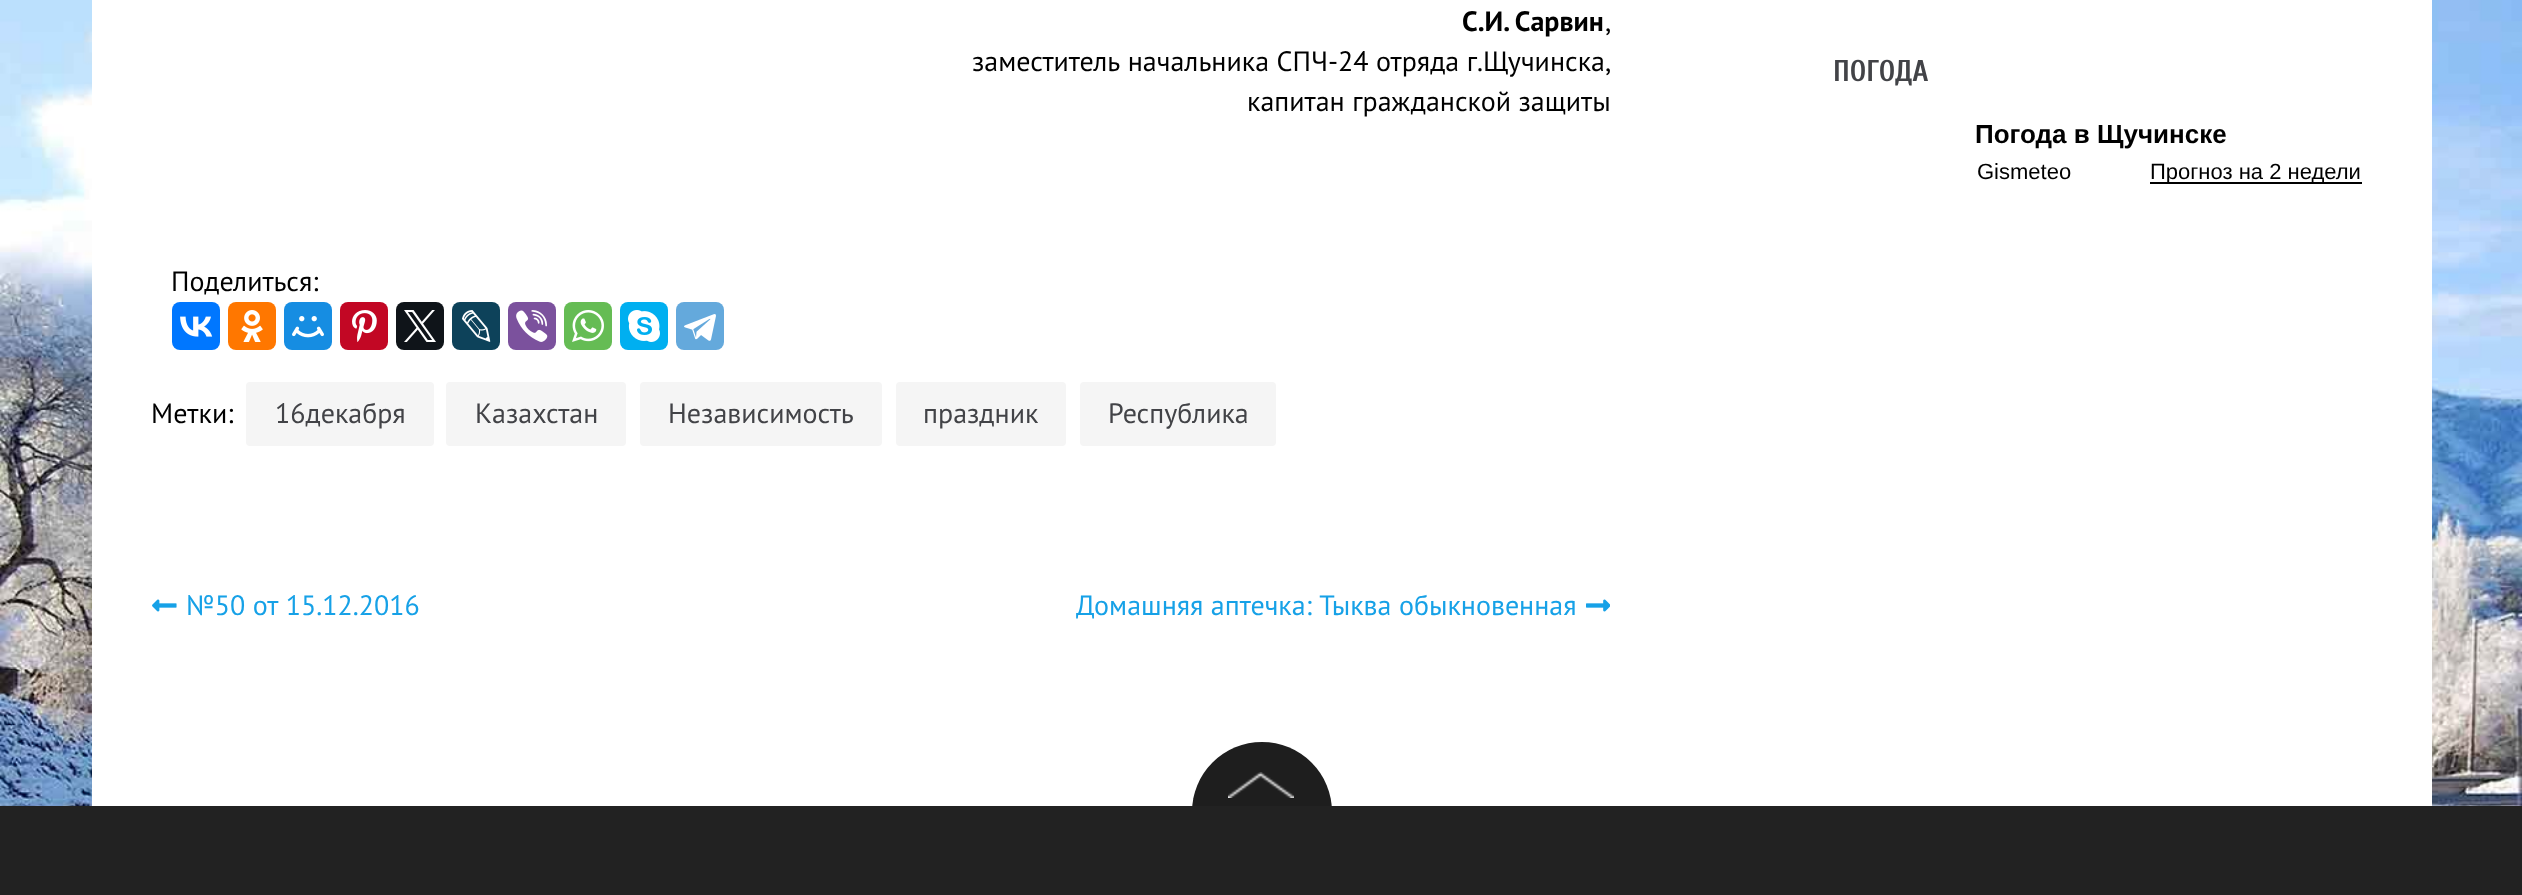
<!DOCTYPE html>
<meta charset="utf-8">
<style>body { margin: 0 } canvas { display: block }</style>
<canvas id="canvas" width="2522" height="895"></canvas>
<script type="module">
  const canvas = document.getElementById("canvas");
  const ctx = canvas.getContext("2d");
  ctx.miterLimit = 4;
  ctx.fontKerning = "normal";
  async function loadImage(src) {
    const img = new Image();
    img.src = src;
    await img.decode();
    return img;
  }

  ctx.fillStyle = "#ffffff";
  ctx.fillRect(0, 0, 2522, 895);
  ctx.drawImage(await loadImage("img1.png"), 0, 0, 2522, 806);
  ctx.fillRect(92, 0, 2340, 806);
  ctx.wordSpacing = "-2px";
  ctx.font = "bold 28px PT Sans";
  ctx.fillStyle = "#000000";
  ctx.fillText("С.И. Сарвин", 1462, 31);
  ctx.wordSpacing = "0px";
  ctx.font = "28px PT Sans";
  ctx.fillText(",", 1605, 31);
  ctx.fillText("заместитель начальника СПЧ-24 отряда г.Щучинска,", 972, 71);
  ctx.fillText("капитан гражданской защиты", 1247, 111);
  ctx.fillText("Поделиться:", 171, 291);
  ctx.fillStyle = "#0077ff";
  ctx.beginPath();
  ctx.roundRect(172, 302, 48, 48, 8);
  ctx.fill();
  ctx.drawImage(await loadImage("img2.png"), 180, 316, 33, 21);
  ctx.fillStyle = "#ff7700";
  ctx.beginPath();
  ctx.roundRect(228, 302, 48, 48, 8);
  ctx.fill();
  ctx.drawImage(await loadImage("img3.png"), 241, 310, 22, 32);
  ctx.fillStyle = "#168de2";
  ctx.beginPath();
  ctx.roundRect(284, 302, 48, 48, 8);
  ctx.fill();
  ctx.drawImage(await loadImage("img4.png"), 292, 316, 32, 22);
  ctx.fillStyle = "#c20724";
  ctx.beginPath();
  ctx.roundRect(340, 302, 48, 48, 8);
  ctx.fill();
  ctx.drawImage(await loadImage("img5.png"), 352, 310, 25, 32);
  ctx.fillStyle = "#0f1419";
  ctx.beginPath();
  ctx.roundRect(396, 302, 48, 48, 8);
  ctx.fill();
  ctx.drawImage(await loadImage("img6.png"), 404, 310, 32, 32);
  ctx.fillStyle = "#0d425a";
  ctx.beginPath();
  ctx.roundRect(452, 302, 48, 48, 8);
  ctx.fill();
  ctx.drawImage(await loadImage("img7.png"), 462, 310, 29, 32);
  ctx.fillStyle = "#7b519d";
  ctx.beginPath();
  ctx.roundRect(508, 302, 48, 48, 8);
  ctx.fill();
  ctx.drawImage(await loadImage("img8.png"), 516, 310, 32, 32);
  ctx.fillStyle = "#65bc54";
  ctx.beginPath();
  ctx.roundRect(564, 302, 48, 48, 8);
  ctx.fill();
  ctx.drawImage(await loadImage("img9.png"), 572, 310, 32, 32);
  ctx.fillStyle = "#00aff0";
  ctx.beginPath();
  ctx.roundRect(620, 302, 48, 48, 8);
  ctx.fill();
  ctx.drawImage(await loadImage("img10.png"), 628, 310, 32, 32);
  ctx.fillStyle = "#64a9dc";
  ctx.beginPath();
  ctx.roundRect(676, 302, 48, 48, 8);
  ctx.fill();
  ctx.drawImage(await loadImage("img11.png"), 684, 314, 32, 27);
  ctx.fillStyle = "#000000";
  ctx.fillText("Метки:", 151, 423);
  ctx.fillStyle = "#f5f5f5";
  ctx.beginPath();
  ctx.roundRect(246, 382, 188, 64, 4);
  ctx.fill();
  ctx.fillStyle = "#424347";
  ctx.fillText("16декабря", 275, 423);
  ctx.fillStyle = "#f5f5f5";
  ctx.beginPath();
  ctx.roundRect(446, 382, 180, 64, 4);
  ctx.fill();
  ctx.fillStyle = "#424347";
  ctx.fillText("Казахстан", 475, 423);
  ctx.fillStyle = "#f5f5f5";
  ctx.beginPath();
  ctx.roundRect(640, 382, 242, 64, 4);
  ctx.fill();
  ctx.fillStyle = "#424347";
  ctx.fillText("Независимость", 668, 423);
  ctx.fillStyle = "#f5f5f5";
  ctx.beginPath();
  ctx.roundRect(896, 382, 170, 64, 4);
  ctx.fill();
  ctx.fillStyle = "#424347";
  ctx.fillText("праздник", 923, 423);
  ctx.fillStyle = "#f5f5f5";
  ctx.beginPath();
  ctx.roundRect(1080, 382, 196, 64, 4);
  ctx.fill();
  ctx.fillStyle = "#424347";
  ctx.fillText("Республика", 1108, 423);
  ctx.drawImage(await loadImage("img12.png"), 152, 599, 25, 13);
  ctx.fillStyle = "#16a1e7";
  ctx.fillText("№50 от 15.12.2016", 186, 615);
  ctx.fillText("Домашняя аптечка: Тыква обыкновенная", 1076, 615);
  ctx.drawImage(await loadImage("img13.png"), 1586, 599, 24, 13);
  ctx.font = "bold 30px Cuprum";
  ctx.fillStyle = "#424347";
  ctx.fillText("ПОГОДА", 1833, 81);
  ctx.font = "bold 26px Liberation Sans";
  ctx.fillStyle = "#000000";
  ctx.fillText("Погода в Щучинске", 1975, 143);
  ctx.font = "22px Liberation Sans";
  ctx.fillText("Gismeteo", 1977, 179);
  ctx.fillRect(2150, 182, 212, 2);
  ctx.fillText("Прогноз на 2 недели", 2150, 179);
  ctx.fillStyle = "#1e1e1e";
  ctx.beginPath();
  ctx.arc(1262, 812, 70, 0, Math.PI * 2);
  ctx.fill();
  ctx.drawImage(await loadImage("img14.png"), 1228, 772, 66, 26);
  ctx.fillStyle = "#222222";
  ctx.fillRect(0, 806, 2522, 89);
</script>
